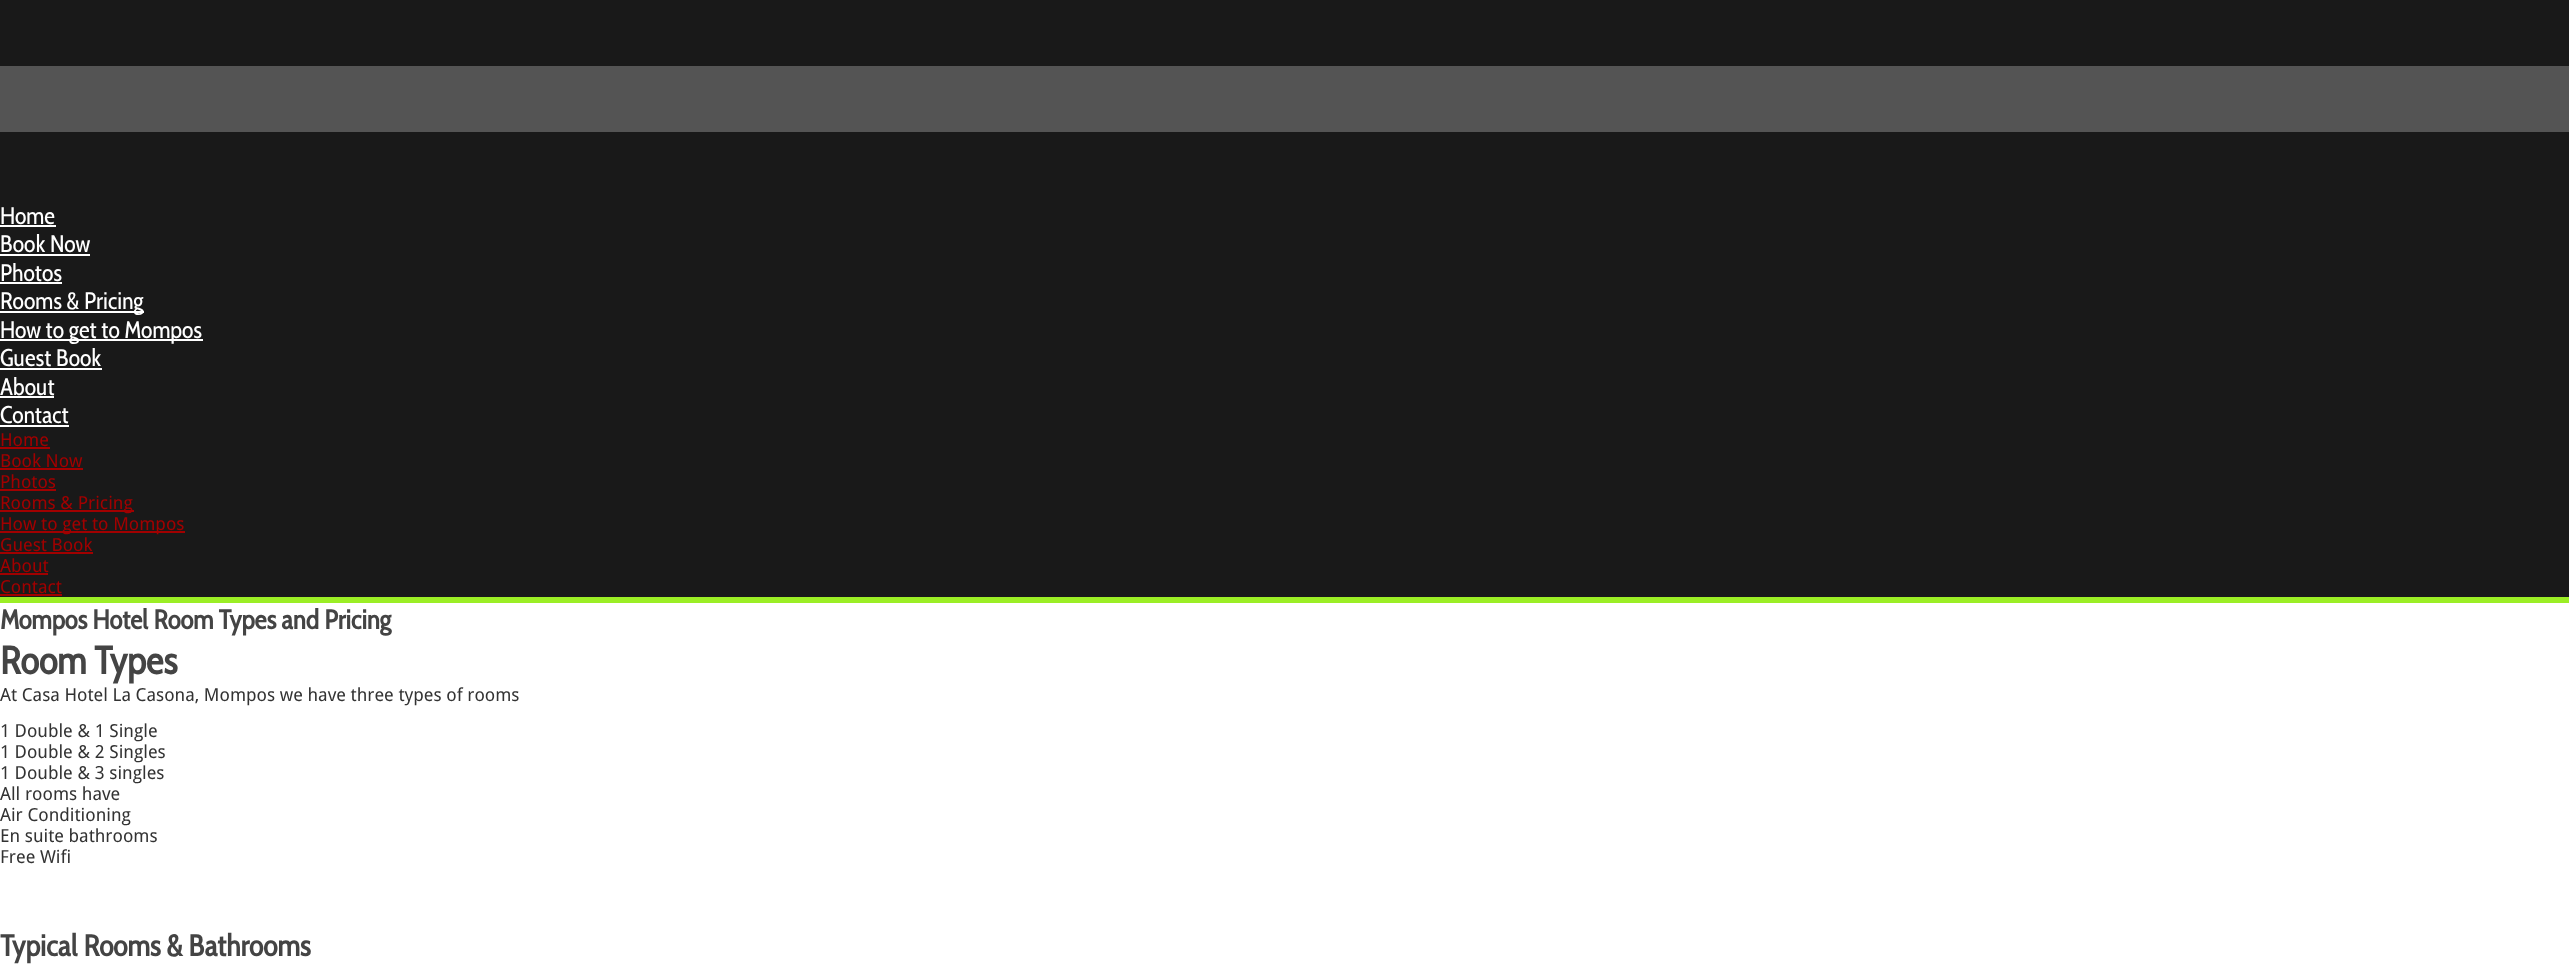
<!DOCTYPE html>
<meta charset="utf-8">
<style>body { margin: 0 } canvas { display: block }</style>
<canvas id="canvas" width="2569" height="978"></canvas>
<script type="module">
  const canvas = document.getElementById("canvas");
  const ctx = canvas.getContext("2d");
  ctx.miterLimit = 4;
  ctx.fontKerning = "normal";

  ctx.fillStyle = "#545454";
  ctx.fillRect(0, 0, 2569, 978);
  ctx.fillStyle = "#191919";
  ctx.fillRect(0, 0, 2569, 66);
  ctx.fillRect(0, 132, 2569, 465);
  ctx.font = "24px Cabin Condensed";
  ctx.fillStyle = "#ffffff";
  ctx.fillText("Home", 0, 224);
  ctx.fillRect(0, 225, 56, 2);
  ctx.fillText("Book Now", 0, 252);
  ctx.fillRect(0, 254, 90, 2);
  ctx.fillText("Photos", 0, 281);
  ctx.fillRect(0, 282, 62, 2);
  ctx.fillRect(0, 311, 144, 2);
  ctx.fillText("Rooms & Pricing", 0, 309);
  ctx.fillRect(0, 339, 203, 2);
  ctx.fillText("How to get to Mompos", 0, 338);
  ctx.fillText("Guest Book", 0, 366);
  ctx.fillRect(0, 368, 102, 2);
  ctx.fillText("About", 0, 395);
  ctx.fillRect(0, 396, 54, 2);
  ctx.fillText("Contact", 0, 423);
  ctx.fillRect(0, 425, 69, 2);
  ctx.font = "18px Droid Sans";
  ctx.fillStyle = "#a10000";
  ctx.fillText("Home", 0, 446);
  ctx.fillRect(0, 447, 50, 2);
  ctx.fillText("Book Now", 0, 467);
  ctx.fillRect(0, 468, 83, 2);
  ctx.fillText("Photos", 0, 488);
  ctx.fillRect(0, 489, 56, 2);
  ctx.fillRect(0, 510, 134, 2);
  ctx.fillText("Rooms & Pricing", 0, 509);
  ctx.fillRect(0, 531, 185, 2);
  ctx.fillText("How to get to Mompos", 0, 530);
  ctx.fillText("Guest Book", 0, 551);
  ctx.fillRect(0, 552, 93, 2);
  ctx.fillText("About", 0, 572);
  ctx.fillRect(0, 573, 48, 2);
  ctx.fillText("Contact", 0, 593);
  ctx.fillRect(0, 594, 62, 2);
  ctx.fillStyle = "#ffffff";
  ctx.fillRect(0, 603, 2569, 375);
  ctx.fillStyle = "#9bee25";
  ctx.fillRect(0, 597, 2569, 6);
  ctx.font = "bold 27px Cabin Condensed";
  ctx.fillStyle = "#444444";
  ctx.fillText("Mompos Hotel Room Types and Pricing", 0, 629);
  ctx.font = "bold 39px Cabin Condensed";
  ctx.fillText("Room Types", 0, 674);
  ctx.font = "18px Droid Sans";
  ctx.fillStyle = "#333333";
  ctx.fillText("At Casa Hotel La Casona, Mompos we have three types of rooms", 0, 701);
  ctx.fillText("1 Double & 1 Single", 0, 737);
  ctx.fillText("1 Double & 2 Singles", 0, 758);
  ctx.fillText("1 Double & 3 singles", 0, 779);
  ctx.fillText("All rooms have", 0, 800);
  ctx.fillText("Air Conditioning", 0, 821);
  ctx.fillText("En suite bathrooms", 0, 842);
  ctx.fillText("Free Wifi", 0, 863);
  ctx.font = "bold 30px Cabin Condensed";
  ctx.fillStyle = "#444444";
  ctx.fillText("Typical Rooms & Bathrooms", 0, 956);
</script>
